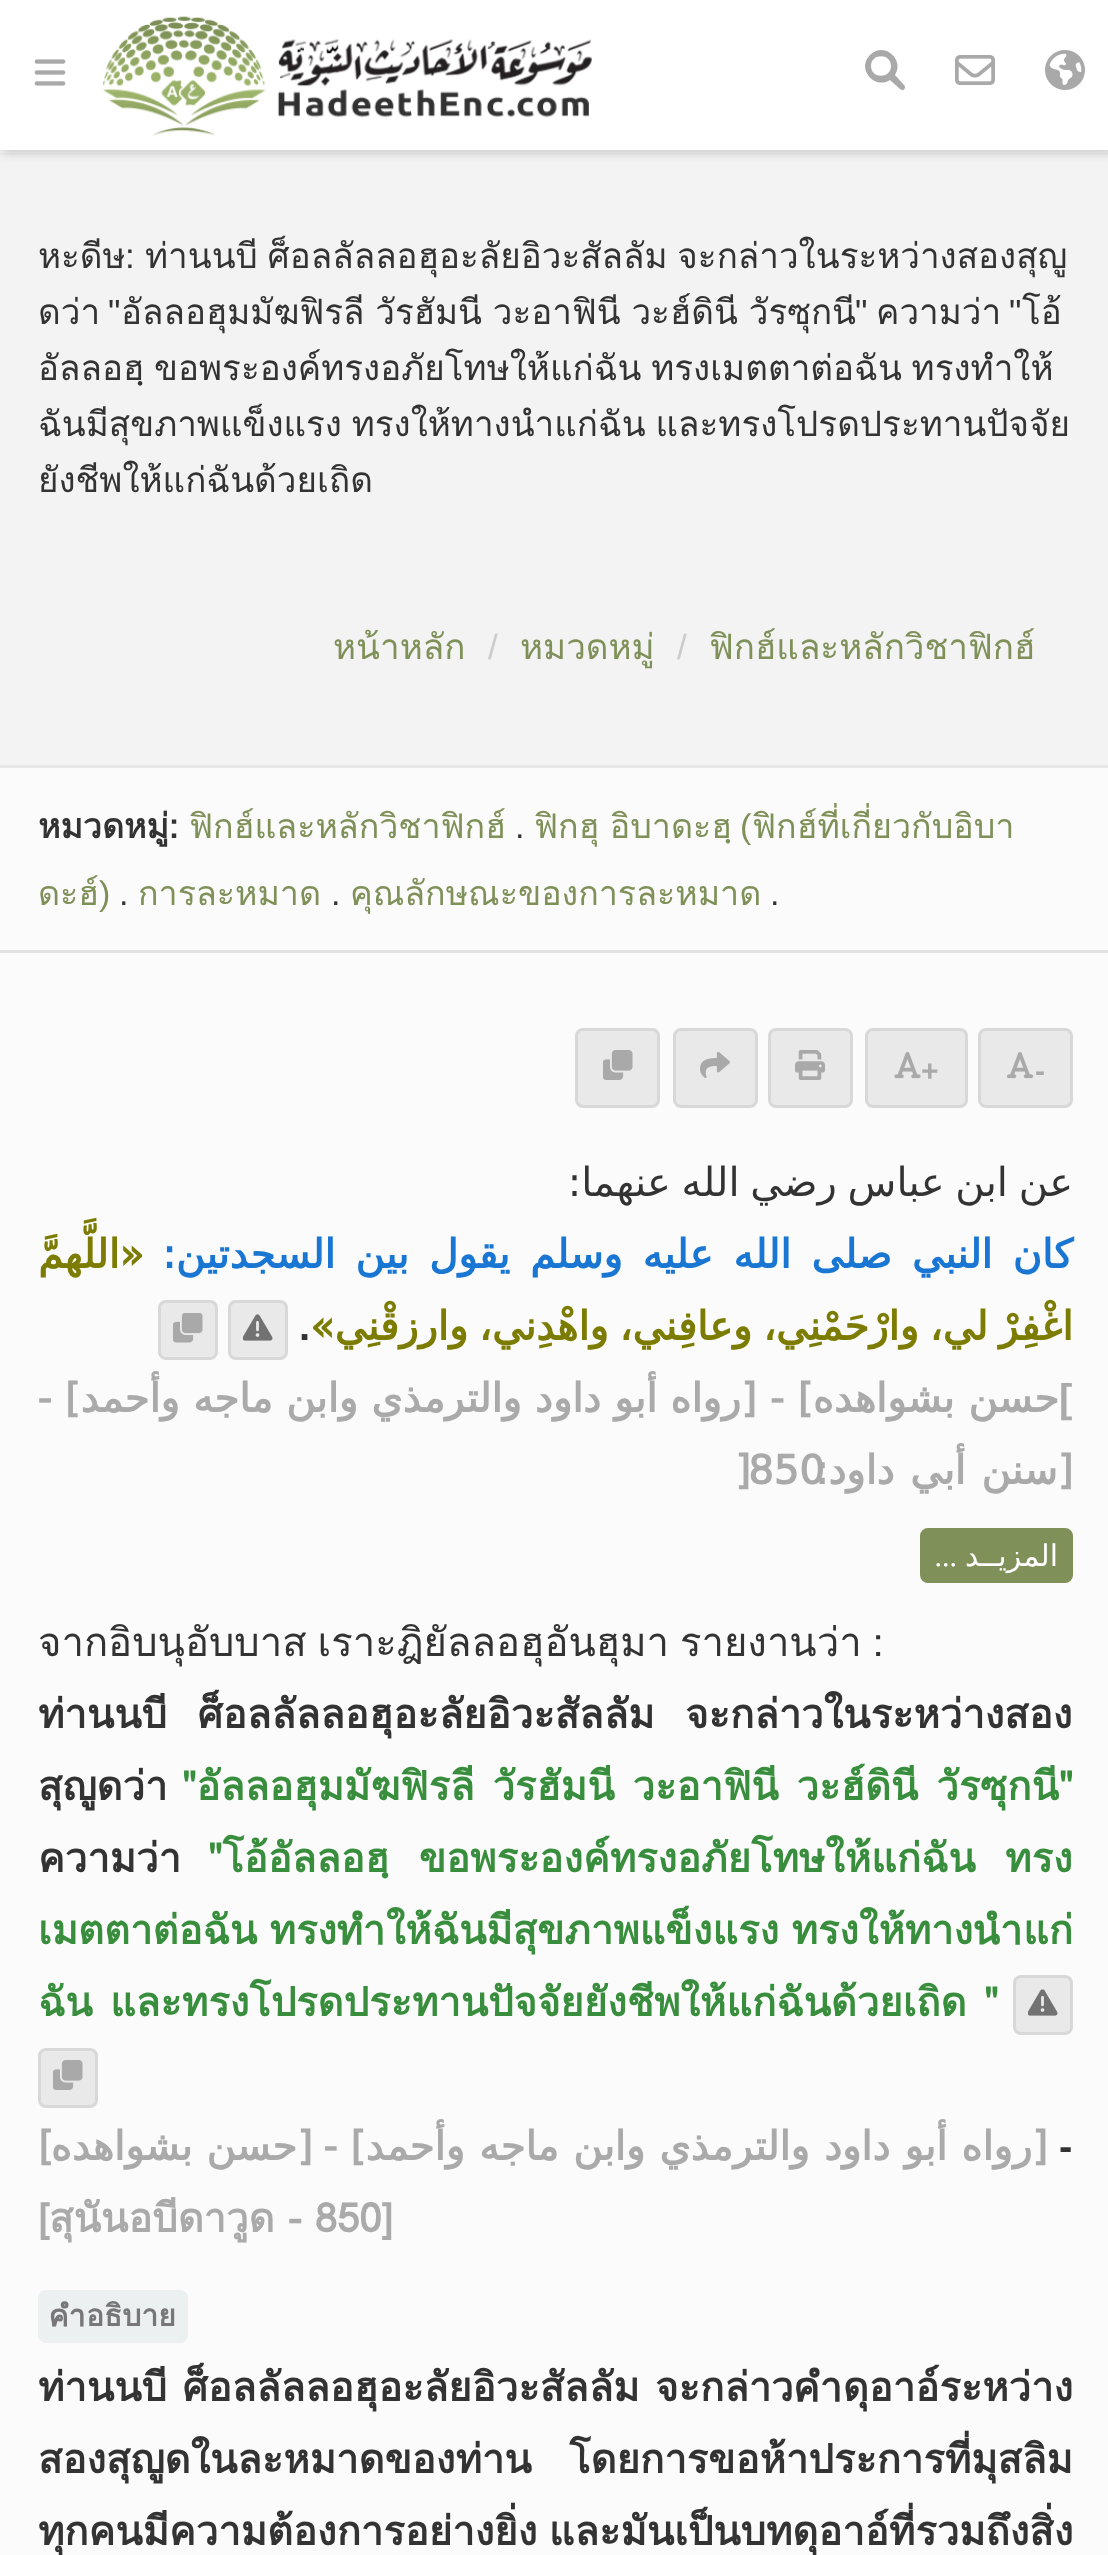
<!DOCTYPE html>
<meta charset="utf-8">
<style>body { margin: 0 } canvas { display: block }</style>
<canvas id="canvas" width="1108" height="2555"></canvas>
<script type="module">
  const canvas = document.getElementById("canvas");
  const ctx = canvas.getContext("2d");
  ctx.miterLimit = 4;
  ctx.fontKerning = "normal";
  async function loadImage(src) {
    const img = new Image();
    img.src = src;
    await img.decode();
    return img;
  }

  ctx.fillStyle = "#f3f3f3";
  ctx.fillRect(0, 0, 1108, 2555);
  ctx.fillStyle = "rgba(0, 0, 0, 0.1)";
  ctx.filter = "blur(2.5px)";
  ctx.beginPath();
  ctx.rect(0, 150, 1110, 3);
  ctx.fill();
  ctx.filter = "none";
  ctx.fillStyle = "#f2f2f2";
  ctx.fillRect(0, 150, 1108, 3);
  ctx.fillStyle = "#cccccc";
  ctx.filter = "blur(5px)";
  ctx.beginPath();
  ctx.rect(3, 3, 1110, 150);
  ctx.fill();
  ctx.filter = "none";
  ctx.fillStyle = "#ffffff";
  ctx.fillRect(0, 0, 1108, 150);
  ctx.drawImage(await loadImage("img1.png"), 34, 59, 32, 27);
  ctx.drawImage(await loadImage("img2.png"), 103, 16, 489, 120);
  ctx.fillStyle = "#a9a9a9";
  ctx.beginPath();
  ctx.moveTo(904, 85);
  ctx.lineTo(895, 75);
  ctx.bezierCurveTo(905, 60, 884, 41, 870, 55);
  ctx.bezierCurveTo(856, 69, 875, 90, 890, 80);
  ctx.lineTo(900, 89);
  ctx.bezierCurveTo(903, 92, 907, 88, 904, 85);
  ctx.closePath();
  ctx.moveTo(871, 66);
  ctx.bezierCurveTo(871, 53, 891, 53, 891, 66);
  ctx.bezierCurveTo(891, 79, 871, 79, 871, 66);
  ctx.closePath();
  ctx.fill();
  ctx.drawImage(await loadImage("img3.png"), 955, 55, 40, 30);
  ctx.drawImage(await loadImage("img4.png"), 1045, 50, 40, 40);
  ctx.fillStyle = "#e7e7e7";
  ctx.fillRect(0, 765, 1108, 3);
  ctx.font = "35px Loma";
  ctx.fillStyle = "#333333";
  ctx.fillText("หะดีษ", 38, 268);
  ctx.font = "35px Liberation Sans";
  ctx.fillText(":", 125, 268);
  ctx.wordSpacing = "-2px";
  ctx.font = "35px Loma";
  ctx.fillText("ท่านนบี ศ็อลลัลลอฮุอะลัยอิวะสัลลัม จะกล่าวในระหว่างสองสุญู", 145, 268);
  ctx.wordSpacing = "0px";
  ctx.fillText("ดว่า", 38, 324);
  ctx.font = "35px Liberation Sans";
  ctx.fillText("\"", 108, 324);
  ctx.wordSpacing = "-1px";
  ctx.font = "35px Loma";
  ctx.fillText("อัลลอฮุมมัฆฟิรลี วัรฮัมนี วะอาฟินี วะฮ์ดินี วัรซุกนี", 121, 324);
  ctx.wordSpacing = "0px";
  ctx.fillText("ความว่า", 876, 324);
  ctx.fillText("โอ้", 1022, 324);
  ctx.font = "35px Liberation Sans";
  ctx.fillText("\"", 855, 324);
  ctx.fillText("\"", 1009, 324);
  ctx.wordSpacing = "-2px";
  ctx.font = "35px Loma";
  ctx.fillText("อัลลอฮฺ ขอพระองค์ทรงอภัยโทษให้แก่ฉัน ทรงเมตตาต่อฉัน ทรงทำให้", 38, 380);
  ctx.fillText("ฉันมีสุขภาพแข็งแรง ทรงให้ทางนำแก่ฉัน และทรงโปรดประทานปัจจัย", 38, 436);
  ctx.wordSpacing = "0px";
  ctx.fillText("ยังชีพให้แก่ฉันด้วยเถิด", 38, 492);
  ctx.fillStyle = "#7f9059";
  ctx.fillText("หน้าหลัก", 333, 659);
  ctx.font = "35px Liberation Sans";
  ctx.fillStyle = "#cccccc";
  ctx.fillText("/", 488, 659);
  ctx.font = "35px Loma";
  ctx.fillStyle = "#7f9059";
  ctx.fillText("หมวดหมู่", 520, 659);
  ctx.font = "35px Liberation Sans";
  ctx.fillStyle = "#cccccc";
  ctx.fillText("/", 677, 659);
  ctx.font = "35px Loma";
  ctx.fillStyle = "#7f9059";
  ctx.fillText("ฟิกฮ์และหลักวิชาฟิกฮ์", 709, 659);
  ctx.fillStyle = "#fbfbfb";
  ctx.fillRect(0, 768, 1108, 182);
  ctx.fillStyle = "#e2e2e2";
  ctx.fillRect(0, 950, 1108, 3);
  ctx.font = "bold 34px Loma";
  ctx.fillStyle = "#333333";
  ctx.fillText("หมวดหมู่:", 38, 838);
  ctx.font = "34px Loma";
  ctx.fillStyle = "#7f9059";
  ctx.fillText("ฟิกฮ์และหลักวิชาฟิกฮ์", 189, 838);
  ctx.font = "34px Liberation Sans";
  ctx.fillStyle = "#333333";
  ctx.fillText(".", 515, 838);
  ctx.wordSpacing = "-1px";
  ctx.font = "34px Loma";
  ctx.fillStyle = "#7f9059";
  ctx.fillText("ฟิกฮุ อิบาดะฮฺ", 534, 838);
  ctx.wordSpacing = "0px";
  ctx.font = "34px Liberation Sans";
  ctx.fillText("(", 740, 838);
  ctx.font = "34px Loma";
  ctx.fillText("ฟิกฮ์ที่เกี่ยวกับอิบา", 752, 838);
  ctx.fillText("ดะฮ์", 38, 905);
  ctx.font = "34px Liberation Sans";
  ctx.fillText(")", 99, 905);
  ctx.fillStyle = "#333333";
  ctx.fillText(".", 119, 905);
  ctx.font = "34px Loma";
  ctx.fillStyle = "#7f9059";
  ctx.fillText("การละหมาด", 138, 905);
  ctx.font = "34px Liberation Sans";
  ctx.fillStyle = "#333333";
  ctx.fillText(".", 331, 905);
  ctx.font = "34px Loma";
  ctx.fillStyle = "#7f9059";
  ctx.fillText("คุณลักษณะของการละหมาด", 350, 905);
  ctx.font = "34px Liberation Sans";
  ctx.fillStyle = "#333333";
  ctx.fillText(".", 770, 905);
  ctx.fillStyle = "#fbfbfb";
  ctx.fillRect(0, 953, 1108, 1602);
  ctx.fillStyle = "#e9e9e9";
  ctx.beginPath();
  ctx.roundRect(575, 1028, 85, 80, 8);
  ctx.fill();
  ctx.beginPath();
  ctx.roundRect(576.5, 1029.5, 82, 77, 6.5);
  ctx.strokeStyle = "rgba(0, 0, 0, 0.07)";
  ctx.lineWidth = 3;
  ctx.stroke();
  ctx.drawImage(await loadImage("img5.png"), 603, 1050, 30, 30);
  ctx.beginPath();
  ctx.roundRect(673, 1028, 85, 80, 8);
  ctx.fill();
  ctx.beginPath();
  ctx.roundRect(674.5, 1029.5, 82, 77, 6.5);
  ctx.stroke();
  ctx.drawImage(await loadImage("img6.png"), 700, 1052, 30, 26);
  ctx.beginPath();
  ctx.roundRect(768, 1028, 85, 80, 8);
  ctx.fill();
  ctx.beginPath();
  ctx.roundRect(769.5, 1029.5, 82, 77, 6.5);
  ctx.stroke();
  ctx.drawImage(await loadImage("img7.png"), 795, 1050, 30, 30);
  ctx.beginPath();
  ctx.roundRect(865, 1028, 103, 80, 8);
  ctx.fill();
  ctx.beginPath();
  ctx.roundRect(866.5, 1029.5, 100, 77, 6.5);
  ctx.stroke();
  ctx.drawImage(await loadImage("img8.png"), 894, 1051, 27, 28);
  ctx.font = "bold 30px Liberation Sans";
  ctx.fillStyle = "#aaaaaa";
  ctx.fillText("+", 921, 1081);
  ctx.fillStyle = "#e9e9e9";
  ctx.beginPath();
  ctx.roundRect(978, 1028, 95, 80, 8);
  ctx.fill();
  ctx.beginPath();
  ctx.roundRect(979.5, 1029.5, 92, 77, 6.5);
  ctx.stroke();
  ctx.drawImage(await loadImage("img9.png"), 1006, 1052, 28, 27);
  ctx.fillStyle = "#aaaaaa";
  ctx.fillText("-", 1035, 1081);
  ctx.wordSpacing = "-2px";
  ctx.direction = "rtl";
  ctx.font = "40px DejaVu Sans";
  ctx.fillStyle = "#333333";
  ctx.fillText("عن ابن عباس رضي الله عنهما:", 1073, 1196);
  ctx.wordSpacing = "0px";
  ctx.font = "bold 40px DejaVu Sans";
  ctx.fillStyle = "#7c7c02";
  ctx.fillText("«اللَّهمَّ", 144, 1268);
  ctx.wordSpacing = "7.25px";
  ctx.fillStyle = "#1976d2";
  ctx.fillText("كان النبي صلى الله عليه وسلم يقول بين السجدتين:", 1073, 1268);
  ctx.fillStyle = "#e9e9e9";
  ctx.beginPath();
  ctx.roundRect(158, 1300, 60, 60, 8);
  ctx.fill();
  ctx.beginPath();
  ctx.roundRect(159.5, 1301.5, 57, 57, 6.5);
  ctx.stroke();
  ctx.drawImage(await loadImage("img10.png"), 173, 1313, 30, 30);
  ctx.beginPath();
  ctx.roundRect(228, 1300, 60, 60, 8);
  ctx.fill();
  ctx.beginPath();
  ctx.roundRect(229.5, 1301.5, 57, 57, 6.5);
  ctx.stroke();
  ctx.drawImage(await loadImage("img11.png"), 243, 1314, 30, 27);
  ctx.wordSpacing = "0px";
  ctx.direction = "ltr";
  ctx.font = "bold 40px Liberation Sans";
  ctx.fillStyle = "#333333";
  ctx.fillText(".", 299, 1340);
  ctx.wordSpacing = "-2px";
  ctx.direction = "rtl";
  ctx.font = "bold 40px DejaVu Sans";
  ctx.fillStyle = "#7c7c02";
  ctx.fillText("اغْفِرْ لي، وارْحَمْنِي، وعافِني، واهْدِني، وارزقْنِي»", 1073, 1340);
  ctx.wordSpacing = "0.5px";
  ctx.fillStyle = "#aaaaaa";
  ctx.fillText("] - [رواه أبو داود والترمذي وابن ماجه وأحمد] -", 813, 1412);
  ctx.wordSpacing = "1px";
  ctx.fillText("حسن بشواهده", 1059, 1412);
  ctx.wordSpacing = "0px";
  ctx.direction = "ltr";
  ctx.font = "bold 40px Liberation Sans";
  ctx.fillText("[", 1059, 1412);
  ctx.font = "bold 40px DejaVu Sans";
  ctx.fillText("]", 735, 1484);
  ctx.fillText("850", 748, 1484);
  ctx.wordSpacing = "3px";
  ctx.direction = "rtl";
  ctx.fillText("[سنن أبي داود:", 1073, 1484);
  ctx.fillStyle = "#7f9059";
  ctx.beginPath();
  ctx.roundRect(921.5, 1529.5, 150, 52, 6.5);
  ctx.fill();
  ctx.strokeStyle = "#7f9059";
  ctx.stroke();
  ctx.wordSpacing = "0px";
  ctx.font = "30px Liberation Serif";
  ctx.fillStyle = "#ffffff";
  ctx.fillText("...", 957, 1566);
  ctx.font = "30px DejaVu Sans";
  ctx.fillText("المزيــد", 1058, 1566);
  ctx.wordSpacing = "-2.5px";
  ctx.direction = "ltr";
  ctx.font = "40px Loma";
  ctx.fillStyle = "#333333";
  ctx.fillText("จากอิบนุอับบาส เราะฎิยัลลอฮุอันฮุมา รายงานว่า :", 38, 1656);
  ctx.wordSpacing = "17px";
  ctx.font = "bold 40px Loma";
  ctx.fillText("ท่านนบี ศ็อลลัลลอฮุอะลัยอิวะสัลลัม จะกล่าวในระหว่างสอง", 38, 1728);
  ctx.wordSpacing = "0px";
  ctx.fillText("สุญูดว่า", 38, 1800);
  ctx.wordSpacing = "4.5px";
  ctx.fillStyle = "#388e3c";
  ctx.fillText("\"อัลลอฮุมมัฆฟิรลี วัรฮัมนี วะอาฟินี วะฮ์ดินี วัรซุกนี\"", 182, 1800);
  ctx.wordSpacing = "0px";
  ctx.fillStyle = "#333333";
  ctx.fillText("ความว่า", 38, 1872);
  ctx.wordSpacing = "16px";
  ctx.fillStyle = "#388e3c";
  ctx.fillText("\"โอ้อัลลอฮฺ ขอพระองค์ทรงอภัยโทษให้แก่ฉัน ทรง", 208, 1872);
  ctx.wordSpacing = "-1px";
  ctx.fillText("เมตตาต่อฉัน ทรงทำให้ฉันมีสุขภาพแข็งแรง ทรงให้ทางนำแก่", 38, 1944);
  ctx.wordSpacing = "4px";
  ctx.fillText("ฉัน และทรงโปรดประทานปัจจัยยังชีพให้แก่ฉันด้วยเถิด \"", 38, 2016);
  ctx.fillStyle = "#e9e9e9";
  ctx.beginPath();
  ctx.roundRect(1013, 1975, 60, 60, 8);
  ctx.fill();
  ctx.beginPath();
  ctx.roundRect(1014.5, 1976.5, 57, 57, 6.5);
  ctx.strokeStyle = "rgba(0, 0, 0, 0.07)";
  ctx.stroke();
  ctx.drawImage(await loadImage("img11.png"), 1028, 1989, 30, 27);
  ctx.beginPath();
  ctx.roundRect(38, 2048, 60, 60, 8);
  ctx.fill();
  ctx.beginPath();
  ctx.roundRect(39.5, 2049.5, 57, 57, 6.5);
  ctx.stroke();
  ctx.drawImage(await loadImage("img5.png"), 53, 2060, 30, 30);
  ctx.wordSpacing = "0px";
  ctx.font = "bold 40px DejaVu Sans";
  ctx.fillStyle = "#aaaaaa";
  ctx.fillText("[", 38, 2160);
  ctx.wordSpacing = "1px";
  ctx.direction = "rtl";
  ctx.fillText("حسن بشواهده", 297, 2160);
  ctx.wordSpacing = "0px";
  ctx.direction = "ltr";
  ctx.fillText("]", 297, 2160);
  ctx.fillText("- [", 323, 2160);
  ctx.wordSpacing = "1.5px";
  ctx.direction = "rtl";
  ctx.fillText("رواه أبو داود والترمذي وابن ماجه وأحمد", 1032, 2160);
  ctx.wordSpacing = "0px";
  ctx.direction = "ltr";
  ctx.fillText("]", 1032, 2160);
  ctx.font = "bold 40px Liberation Sans";
  ctx.fillStyle = "#333333";
  ctx.fillText("-", 1059, 2160);
  ctx.font = "bold 40px Loma";
  ctx.fillStyle = "#aaaaaa";
  ctx.fillText("[สุนันอบีดาวูด - 850]", 38, 2232);
  ctx.fillStyle = "#ecf0f1";
  ctx.beginPath();
  ctx.roundRect(38, 2290, 150, 53, 8);
  ctx.fill();
  ctx.font = "bold 30px Loma";
  ctx.fillStyle = "#777777";
  ctx.fillText("คำอธิบาย", 49, 2326);
  ctx.wordSpacing = "2px";
  ctx.font = "bold 40px Loma";
  ctx.fillStyle = "#333333";
  ctx.fillText("ท่านนบี ศ็อลลัลลอฮุอะลัยอิวะสัลลัม จะกล่าวคำดุอาอ์ระหว่าง", 38, 2401);
  ctx.wordSpacing = "24px";
  ctx.fillText("สองสุญูดในละหมาดของท่าน โดยการขอห้าประการที่มุสลิม", 38, 2473);
  ctx.wordSpacing = "-2px";
  ctx.fillText("ทุกคนมีความต้องการอย่างยิ่ง และมันเป็นบทดุอาอ์ที่รวมถึงสิ่ง", 38, 2545);
</script>
